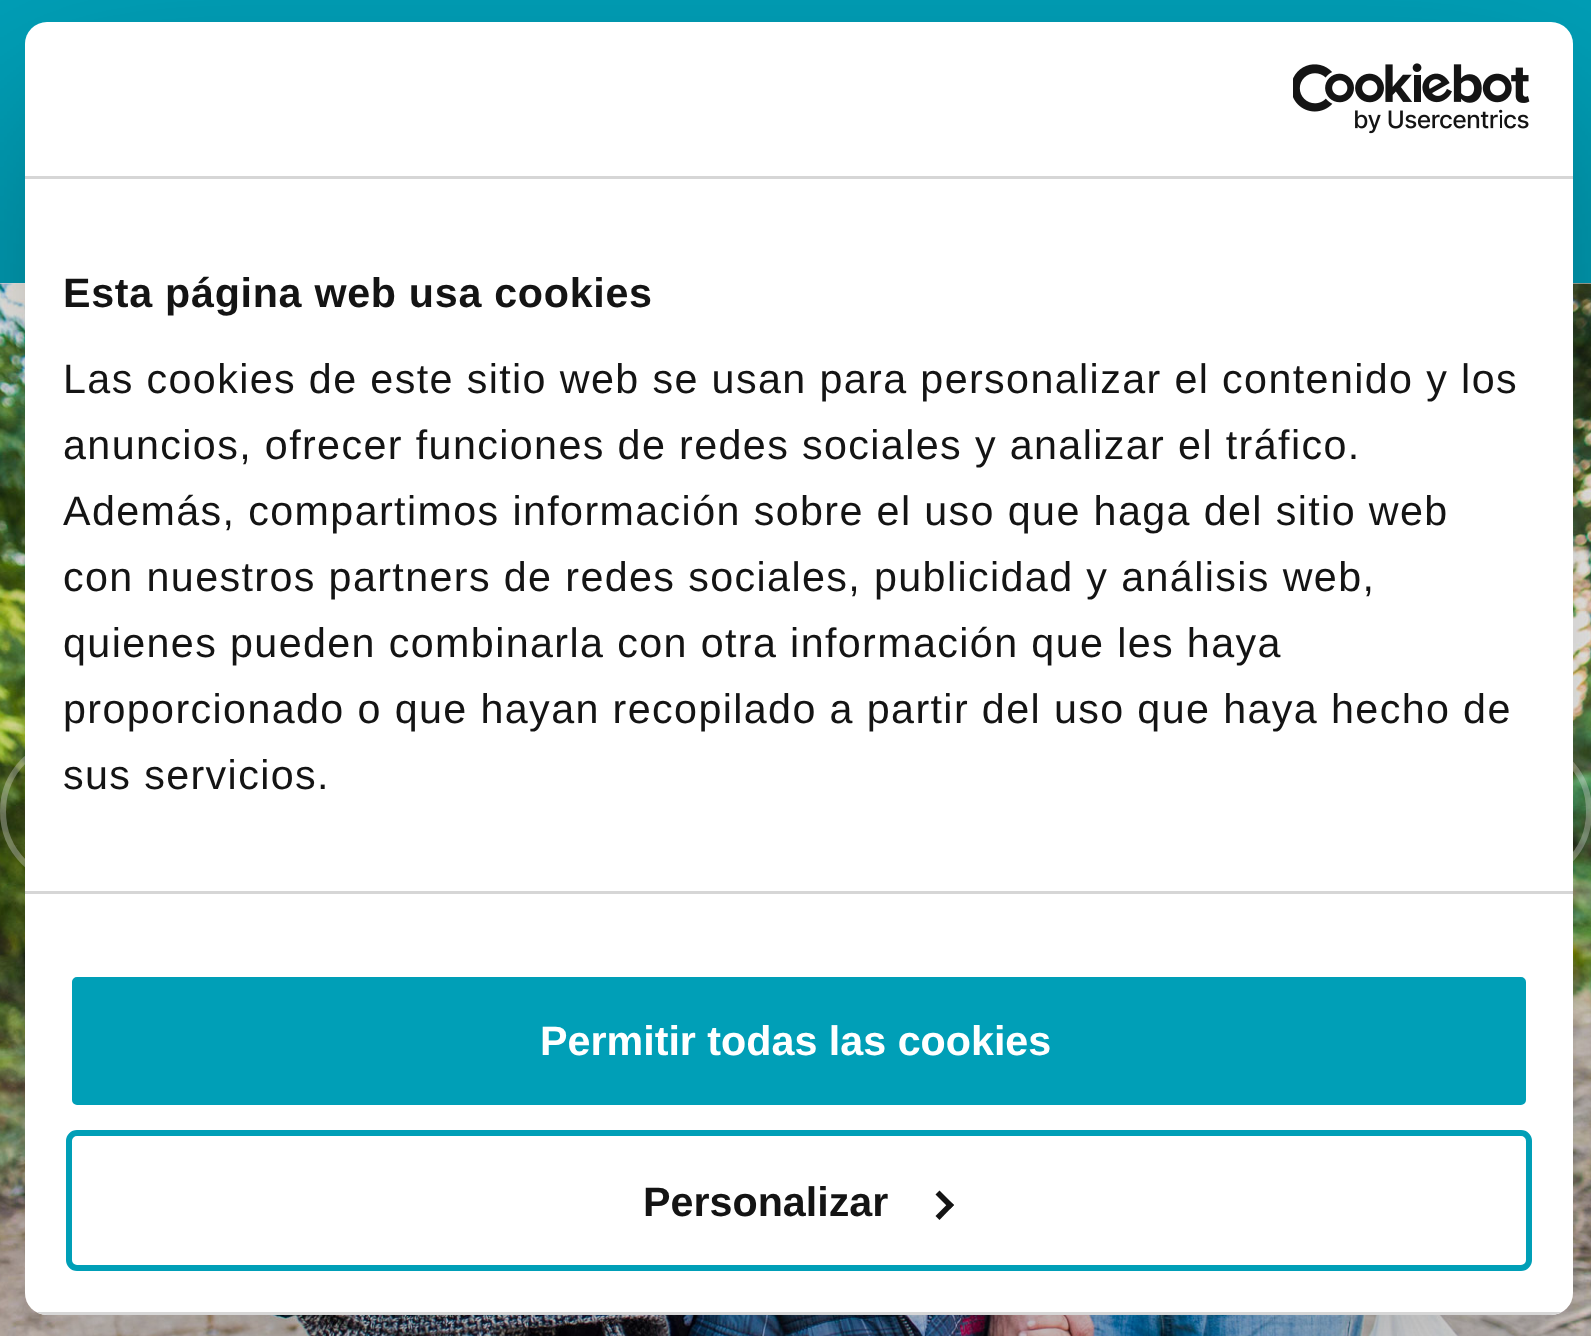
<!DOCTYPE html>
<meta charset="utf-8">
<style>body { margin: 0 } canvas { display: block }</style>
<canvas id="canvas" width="1591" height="1336"></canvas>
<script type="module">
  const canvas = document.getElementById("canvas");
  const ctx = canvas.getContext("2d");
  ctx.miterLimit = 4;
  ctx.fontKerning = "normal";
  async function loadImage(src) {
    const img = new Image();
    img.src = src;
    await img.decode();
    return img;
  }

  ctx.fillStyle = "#f6f6f6";
  ctx.fillRect(0, 0, 1591, 1336);
  ctx.fillStyle = "#009fb7";
  ctx.fillRect(0, 0, 1591, 283);
  ctx.drawImage(await loadImage("img1.png"), 0, 283, 1591, 1053);
  ctx.beginPath();
  ctx.arc(74.5, 811.5, 71.5, 0, Math.PI * 2);
  ctx.strokeStyle = "rgba(255, 255, 255, 0.35)";
  ctx.lineWidth = 6;
  ctx.stroke();
  ctx.beginPath();
  ctx.roundRect(1447, 740, 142, 143, 71);
  ctx.stroke();
  ctx.save();
  ctx.beginPath();
  ctx.moveTo(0, 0);
  ctx.lineTo(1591, 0);
  ctx.lineTo(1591, 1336);
  ctx.lineTo(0, 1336);
  ctx.closePath();
  ctx.moveTo(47, 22);
  ctx.lineTo(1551, 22);
  ctx.bezierCurveTo(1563, 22, 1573, 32, 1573, 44);
  ctx.lineTo(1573, 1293);
  ctx.bezierCurveTo(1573, 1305, 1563, 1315, 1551, 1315);
  ctx.lineTo(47, 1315);
  ctx.bezierCurveTo(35, 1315, 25, 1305, 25, 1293);
  ctx.lineTo(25, 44);
  ctx.bezierCurveTo(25, 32, 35, 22, 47, 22);
  ctx.closePath();
  ctx.clip("evenodd");
  ctx.fillStyle = "rgba(0, 0, 0, 0.3)";
  ctx.filter = "blur(93.5px)";
  ctx.beginPath();
  ctx.roundRect(25, 110, 1548, 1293, 22);
  ctx.fill();
  ctx.filter = "none";
  ctx.restore();
  ctx.fillStyle = "#ffffff";
  ctx.beginPath();
  ctx.roundRect(25, 22, 1548, 1293, 22);
  ctx.fill();
  ctx.fillStyle = "#d6d6d6";
  ctx.fillRect(25, 176, 1548, 3);
  ctx.drawImage(await loadImage("img2.png"), 1293, 63, 237, 71);
  ctx.fillRect(25, 891, 1548, 3);
  ctx.letterSpacing = "0.7px";
  ctx.font = "bold 41.25px Liberation Sans";
  ctx.fillStyle = "#141414";
  ctx.fillText("Esta página web usa cookies", 63, 307);
  ctx.letterSpacing = "1.38px";
  ctx.font = "41.25px Liberation Sans";
  ctx.fillText("Las cookies de este sitio web se usan para personalizar el contenido y los", 63, 393);
  ctx.fillText("anuncios, ofrecer funciones de redes sociales y analizar el tráfico.", 63, 459);
  ctx.fillText("Además, compartimos información sobre el uso que haga del sitio web", 63, 525);
  ctx.fillText("con nuestros partners de redes sociales, publicidad y análisis web,", 63, 591);
  ctx.fillText("quienes pueden combinarla con otra información que les haya", 63, 657);
  ctx.fillText("proporcionado o que hayan recopilado a partir del uso que haya hecho de", 63, 723);
  ctx.fillText("sus servicios.", 63, 789);
  ctx.save();
  ctx.beginPath();
  ctx.roundRect(25, 22, 1548, 1293, 22);
  ctx.clip();
  ctx.fillStyle = "#d6d6d6";
  ctx.fillRect(36, 1312, 1526, 3);
  ctx.restore();
  ctx.fillStyle = "#009fb7";
  ctx.beginPath();
  ctx.roundRect(69, 974, 1460, 134, 8);
  ctx.fill();
  ctx.strokeStyle = "#ffffff";
  ctx.stroke();
  ctx.letterSpacing = "0px";
  ctx.font = "bold 41.25px Liberation Sans";
  ctx.fillStyle = "#ffffff";
  ctx.fillText("Permitir todas las cookies", 540, 1055);
  ctx.beginPath();
  ctx.roundRect(69, 1133, 1460, 135, 8);
  ctx.strokeStyle = "#009fb7";
  ctx.stroke();
  ctx.fillStyle = "#141414";
  ctx.fillText("Personalizar", 643, 1216);
  ctx.beginPath();
  ctx.moveTo(939.5, 1190.5);
  ctx.lineTo(954, 1205);
  ctx.lineTo(950, 1209);
  ctx.lineTo(935.5, 1194.5);
  ctx.closePath();
  ctx.fill();
  ctx.beginPath();
  ctx.moveTo(950, 1201.5);
  ctx.lineTo(954, 1205);
  ctx.lineTo(939.5, 1220);
  ctx.lineTo(935.5, 1216);
  ctx.closePath();
  ctx.fill();
</script>
